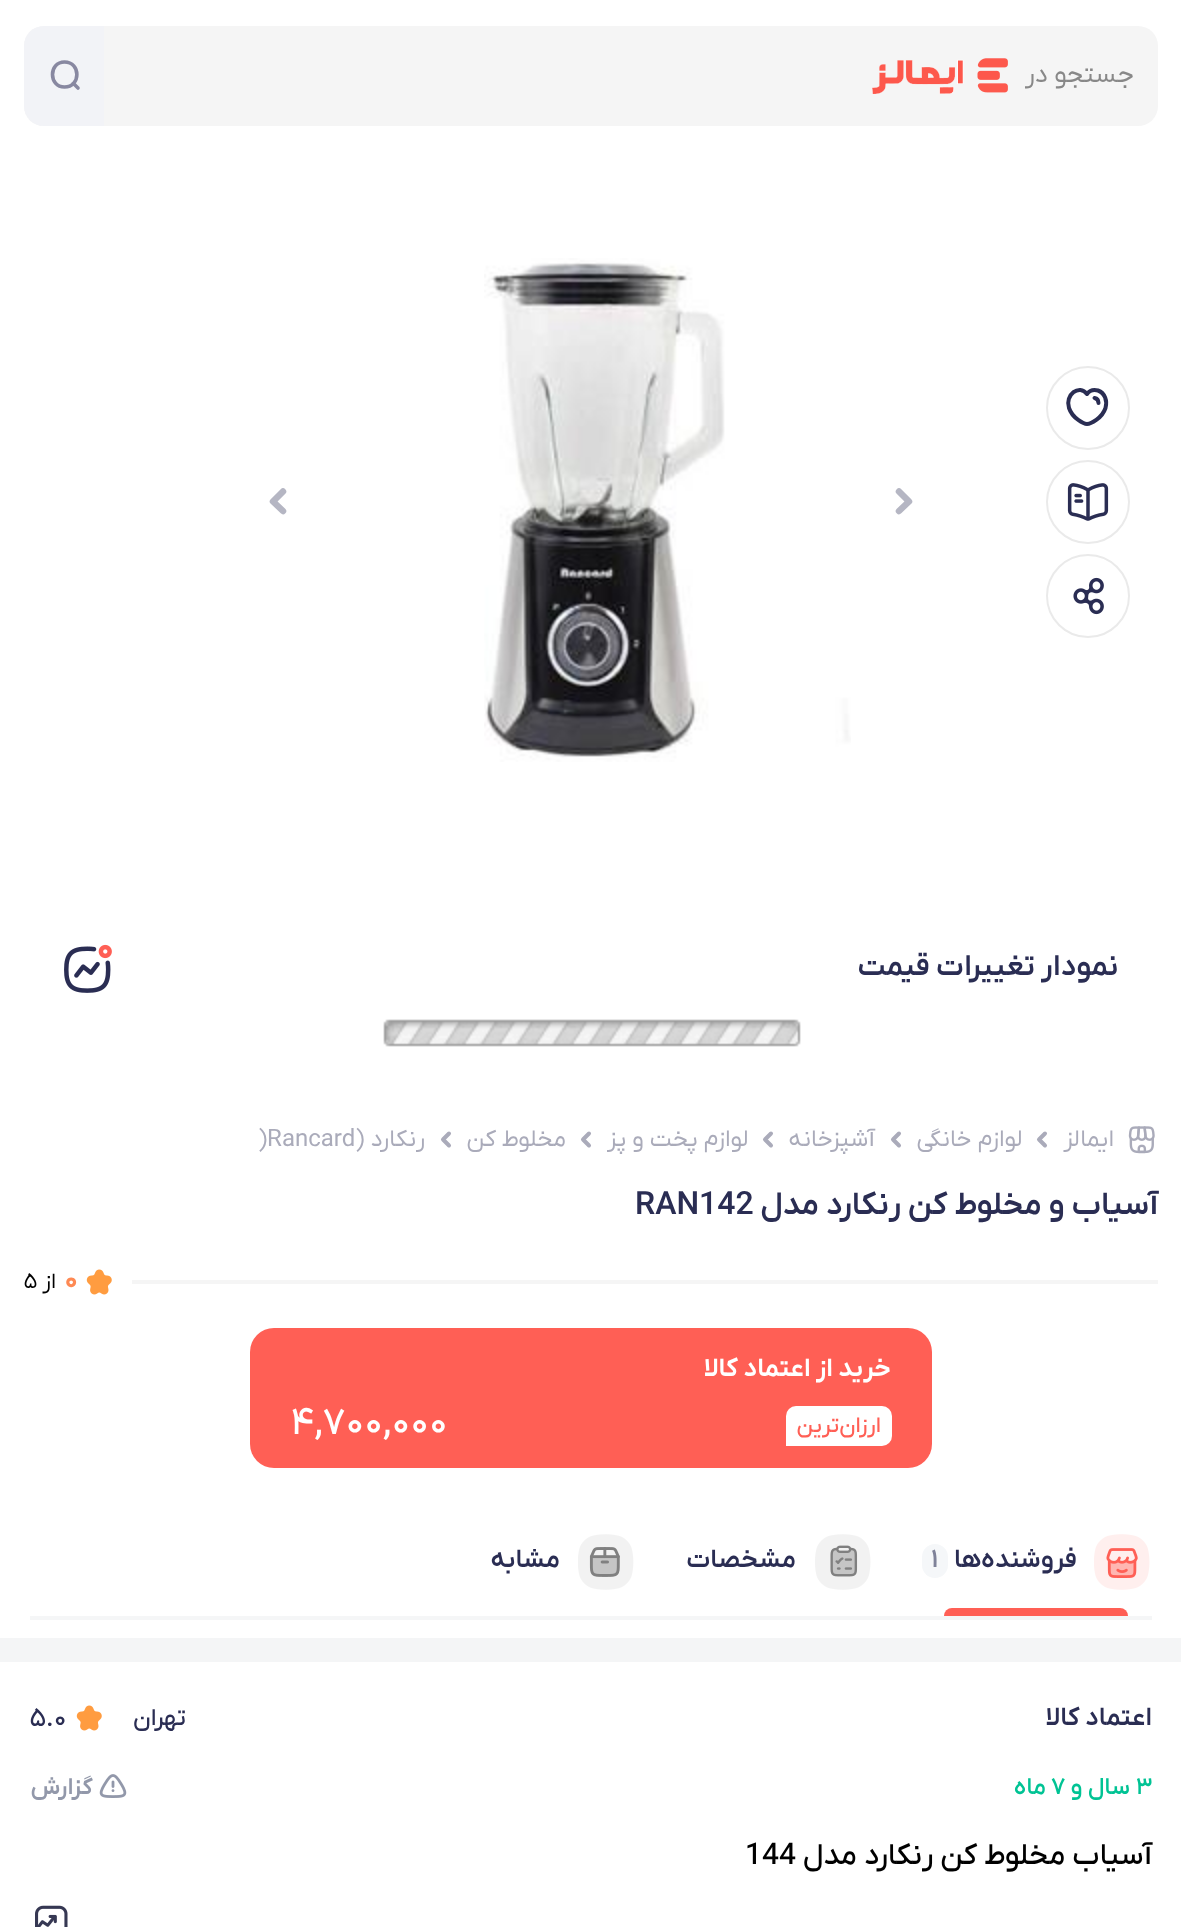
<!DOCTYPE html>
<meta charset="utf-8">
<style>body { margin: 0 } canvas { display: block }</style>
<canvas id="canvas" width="1181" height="1927"></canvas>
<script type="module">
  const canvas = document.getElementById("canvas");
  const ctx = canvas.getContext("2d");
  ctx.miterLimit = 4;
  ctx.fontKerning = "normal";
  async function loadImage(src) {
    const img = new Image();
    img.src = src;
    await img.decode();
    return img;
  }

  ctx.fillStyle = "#ffffff";
  ctx.fillRect(0, 0, 1181, 1927);
  ctx.fillStyle = "#f5f5f5";
  ctx.beginPath();
  ctx.roundRect(24, 26, 1134, 100, 20);
  ctx.fill();
  ctx.direction = "rtl";
  ctx.font = "26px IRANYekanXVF";
  ctx.fillStyle = "#888888";
  ctx.fillText("جستجو در", 1134, 82);
  ctx.drawImage(await loadImage("img1.png"), 872, 58, 136, 36);
  ctx.fillStyle = "#f2f3f7";
  ctx.beginPath();
  ctx.roundRect(24, 26, 80, 100, [20, 0, 0, 20]);
  ctx.fill();
  ctx.beginPath();
  ctx.moveTo(64.5, 87);
  ctx.bezierCurveTo(81, 87, 81, 62, 64.5, 62);
  ctx.bezierCurveTo(48.5, 62, 48.5, 87, 64.5, 87);
  ctx.closePath();
  ctx.strokeStyle = "#8888a1";
  ctx.lineWidth = 3.6;
  ctx.lineCap = "round";
  ctx.stroke();
  ctx.beginPath();
  ctx.moveTo(73.5, 83.5);
  ctx.lineTo(78, 88);
  ctx.lineJoin = "round";
  ctx.stroke();
  ctx.beginPath();
  ctx.arc(1088, 408, 41, 0, Math.PI * 2);
  ctx.strokeStyle = "#eaeaea";
  ctx.lineWidth = 2;
  ctx.stroke();
  ctx.beginPath();
  ctx.moveTo(1069, 408);
  ctx.bezierCurveTo(1064.5, 395, 1079.5, 383.5, 1087, 394);
  ctx.bezierCurveTo(1089.5, 390.5, 1094, 389.5, 1098, 390.5);
  ctx.bezierCurveTo(1105, 393, 1107.5, 401, 1105.5, 408);
  ctx.bezierCurveTo(1102, 418.5, 1090.5, 424, 1087, 424);
  ctx.bezierCurveTo(1084, 424, 1072.5, 418.5, 1069, 408);
  ctx.closePath();
  ctx.moveTo(1094.5, 398);
  ctx.bezierCurveTo(1097, 398.5, 1098.5, 400.5, 1098.5, 403);
  ctx.strokeStyle = "#2a2d53";
  ctx.lineWidth = 4;
  ctx.stroke();
  ctx.beginPath();
  ctx.arc(1088, 502, 41, 0, Math.PI * 2);
  ctx.strokeStyle = "#eaeaea";
  ctx.lineWidth = 2;
  ctx.stroke();
  ctx.drawImage(await loadImage("img2.png"), 1067, 483, 42, 38);
  ctx.beginPath();
  ctx.arc(1088, 596, 41, 0, Math.PI * 2);
  ctx.stroke();
  ctx.drawImage(await loadImage("img3.png"), 1073, 577, 31, 38);
  ctx.beginPath();
  ctx.moveTo(899, 491.5);
  ctx.lineTo(909, 501.5);
  ctx.lineTo(899, 511);
  ctx.strokeStyle = "#b5b6c3";
  ctx.lineWidth = 6.5;
  ctx.stroke();
  ctx.drawImage(await loadImage("img4.png"), 484, 258, 367, 504);
  ctx.beginPath();
  ctx.moveTo(283, 511);
  ctx.lineTo(273, 501.5);
  ctx.lineTo(283, 491.5);
  ctx.stroke();
  ctx.font = "600 30px IRANYekanXVF";
  ctx.fillStyle = "#2a2d53";
  ctx.fillText("نمودار تغییرات قیمت", 1118, 975);
  ctx.drawImage(await loadImage("img5.png"), 64, 944, 48, 49);
  ctx.drawImage(await loadImage("img6.png"), 383, 1019, 418, 28);
  ctx.drawImage(await loadImage("img7.png"), 1128, 1126, 27, 28);
  ctx.font = "24px IRANYekanXVF";
  ctx.fillStyle = "#aaabba";
  ctx.fillText("ایمالز", 1114, 1146);
  ctx.beginPath();
  ctx.moveTo(1045, 1145.5);
  ctx.lineTo(1039, 1139.5);
  ctx.lineTo(1045, 1133.5);
  ctx.strokeStyle = "#aaabba";
  ctx.lineWidth = 4;
  ctx.stroke();
  ctx.fillText("لوازم خانگی", 1022, 1146);
  ctx.beginPath();
  ctx.moveTo(899, 1145.5);
  ctx.lineTo(893, 1139.5);
  ctx.lineTo(899, 1133.5);
  ctx.stroke();
  ctx.fillText("آشپزخانه", 875, 1146);
  ctx.beginPath();
  ctx.moveTo(771, 1145.5);
  ctx.lineTo(765, 1139.5);
  ctx.lineTo(771, 1133.5);
  ctx.stroke();
  ctx.fillText("لوازم پخت و پز", 748, 1146);
  ctx.beginPath();
  ctx.moveTo(589, 1145.5);
  ctx.lineTo(583, 1139.5);
  ctx.lineTo(589, 1133.5);
  ctx.stroke();
  ctx.fillText("مخلوط کن", 566, 1146);
  ctx.beginPath();
  ctx.moveTo(449, 1145.5);
  ctx.lineTo(443, 1139.5);
  ctx.lineTo(449, 1133.5);
  ctx.stroke();
  ctx.fillText("رنکارد (", 425, 1146);
  ctx.direction = "ltr";
  ctx.fillText(")Rancard", 258, 1146);
  ctx.direction = "rtl";
  ctx.font = "600 32px IRANYekanXVF";
  ctx.fillStyle = "#2a2d53";
  ctx.fillText("آسیاب و مخلوط کن رنکارد مدل", 1158, 1214);
  ctx.direction = "ltr";
  ctx.fillText("RAN142", 635, 1214);
  ctx.fillStyle = "#f5f5f5";
  ctx.fillRect(132, 1280, 1026, 4);
  ctx.drawImage(await loadImage("img8.png"), 86, 1269, 26, 26);
  ctx.font = "bold 28px IRANYekanXVF";
  ctx.fillStyle = "#fe8953";
  ctx.fillText("۰", 64, 1288);
  ctx.direction = "rtl";
  ctx.font = "22px IRANYekanXVF";
  ctx.fillStyle = "#000000";
  ctx.fillText("از", 56, 1288);
  ctx.direction = "ltr";
  ctx.fillText("۵", 24, 1288);
  ctx.fillStyle = "#ff5f55";
  ctx.beginPath();
  ctx.roundRect(250, 1328, 682, 140, 24);
  ctx.fill();
  ctx.direction = "rtl";
  ctx.font = "600 26px 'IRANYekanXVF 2'";
  ctx.fillStyle = "#ffffff";
  ctx.fillText("خرید از اعتماد کالا", 891, 1376);
  ctx.beginPath();
  ctx.roundRect(786, 1406, 106, 40, [10, 10, 10, 0]);
  ctx.fill();
  ctx.font = "500 22px IRANYekanXVF";
  ctx.fillStyle = "#ff5f55";
  ctx.fillText("ارزان‌ترین", 881, 1432);
  ctx.direction = "ltr";
  ctx.font = "500 38px IRANYekanXVF";
  ctx.fillStyle = "#ffffff";
  ctx.fillText("۴,۷۰۰,۰۰۰", 291, 1434);
  ctx.fillStyle = "#f5f6f7";
  ctx.fillRect(30, 1616, 1122, 4);
  ctx.drawImage(await loadImage("img9.png"), 1094, 1534, 56, 56);
  ctx.direction = "rtl";
  ctx.font = "600 26px IRANYekanXVF";
  ctx.fillStyle = "#2a2d53";
  ctx.fillText("فروشنده‌ها", 1077, 1567);
  ctx.fillStyle = "#f5f7f9";
  ctx.beginPath();
  ctx.roundRect(922, 1544, 26, 34, 13);
  ctx.fill();
  ctx.direction = "ltr";
  ctx.fillStyle = "#7f8299";
  ctx.fillText("۱", 931, 1567);
  ctx.fillStyle = "#ff5f55";
  ctx.beginPath();
  ctx.roundRect(944, 1608, 184, 8, [8, 8, 0, 0]);
  ctx.fill();
  ctx.drawImage(await loadImage("img10.png"), 815, 1534, 56, 56);
  ctx.direction = "rtl";
  ctx.fillStyle = "#2a2d53";
  ctx.fillText("مشخصات", 796, 1567);
  ctx.drawImage(await loadImage("img11.png"), 578, 1534, 56, 56);
  ctx.fillText("مشابه", 560, 1567);
  ctx.fillStyle = "#f4f5f6";
  ctx.fillRect(0, 1638, 1181, 24);
  ctx.fillStyle = "#2a2d53";
  ctx.fillText("اعتماد کالا", 1152, 1725);
  ctx.font = "500 24px IRANYekanXVF";
  ctx.fillText("تهران", 186, 1725);
  ctx.drawImage(await loadImage("img8.png"), 76, 1705, 26, 26);
  ctx.direction = "ltr";
  ctx.font = "500 26px IRANYekanXVF";
  ctx.fillText("۵.۰", 30, 1726);
  ctx.font = "500 24px 'IRANYekanXVF 2'";
  ctx.fillStyle = "#00c394";
  ctx.fillText("۳", 1136, 1794);
  ctx.direction = "rtl";
  ctx.fillText("سال و", 1130, 1794);
  ctx.direction = "ltr";
  ctx.fillText("۷", 1051, 1794);
  ctx.direction = "rtl";
  ctx.fillText("ماه", 1046, 1794);
  ctx.drawImage(await loadImage("img12.png"), 99, 1774, 28, 24);
  ctx.font = "600 24px IRANYekanXVF";
  ctx.fillStyle = "#9298aa";
  ctx.fillText("گزارش", 93, 1794);
  ctx.font = "500 30px IRANYekanXVF";
  ctx.fillStyle = "#000000";
  ctx.fillText("آسیاب مخلوط کن رنکارد مدل", 1152, 1864);
  ctx.direction = "ltr";
  ctx.fillText("144", 745, 1864);
  ctx.drawImage(await loadImage("img13.png"), 35, 1905, 33, 22);
</script>
